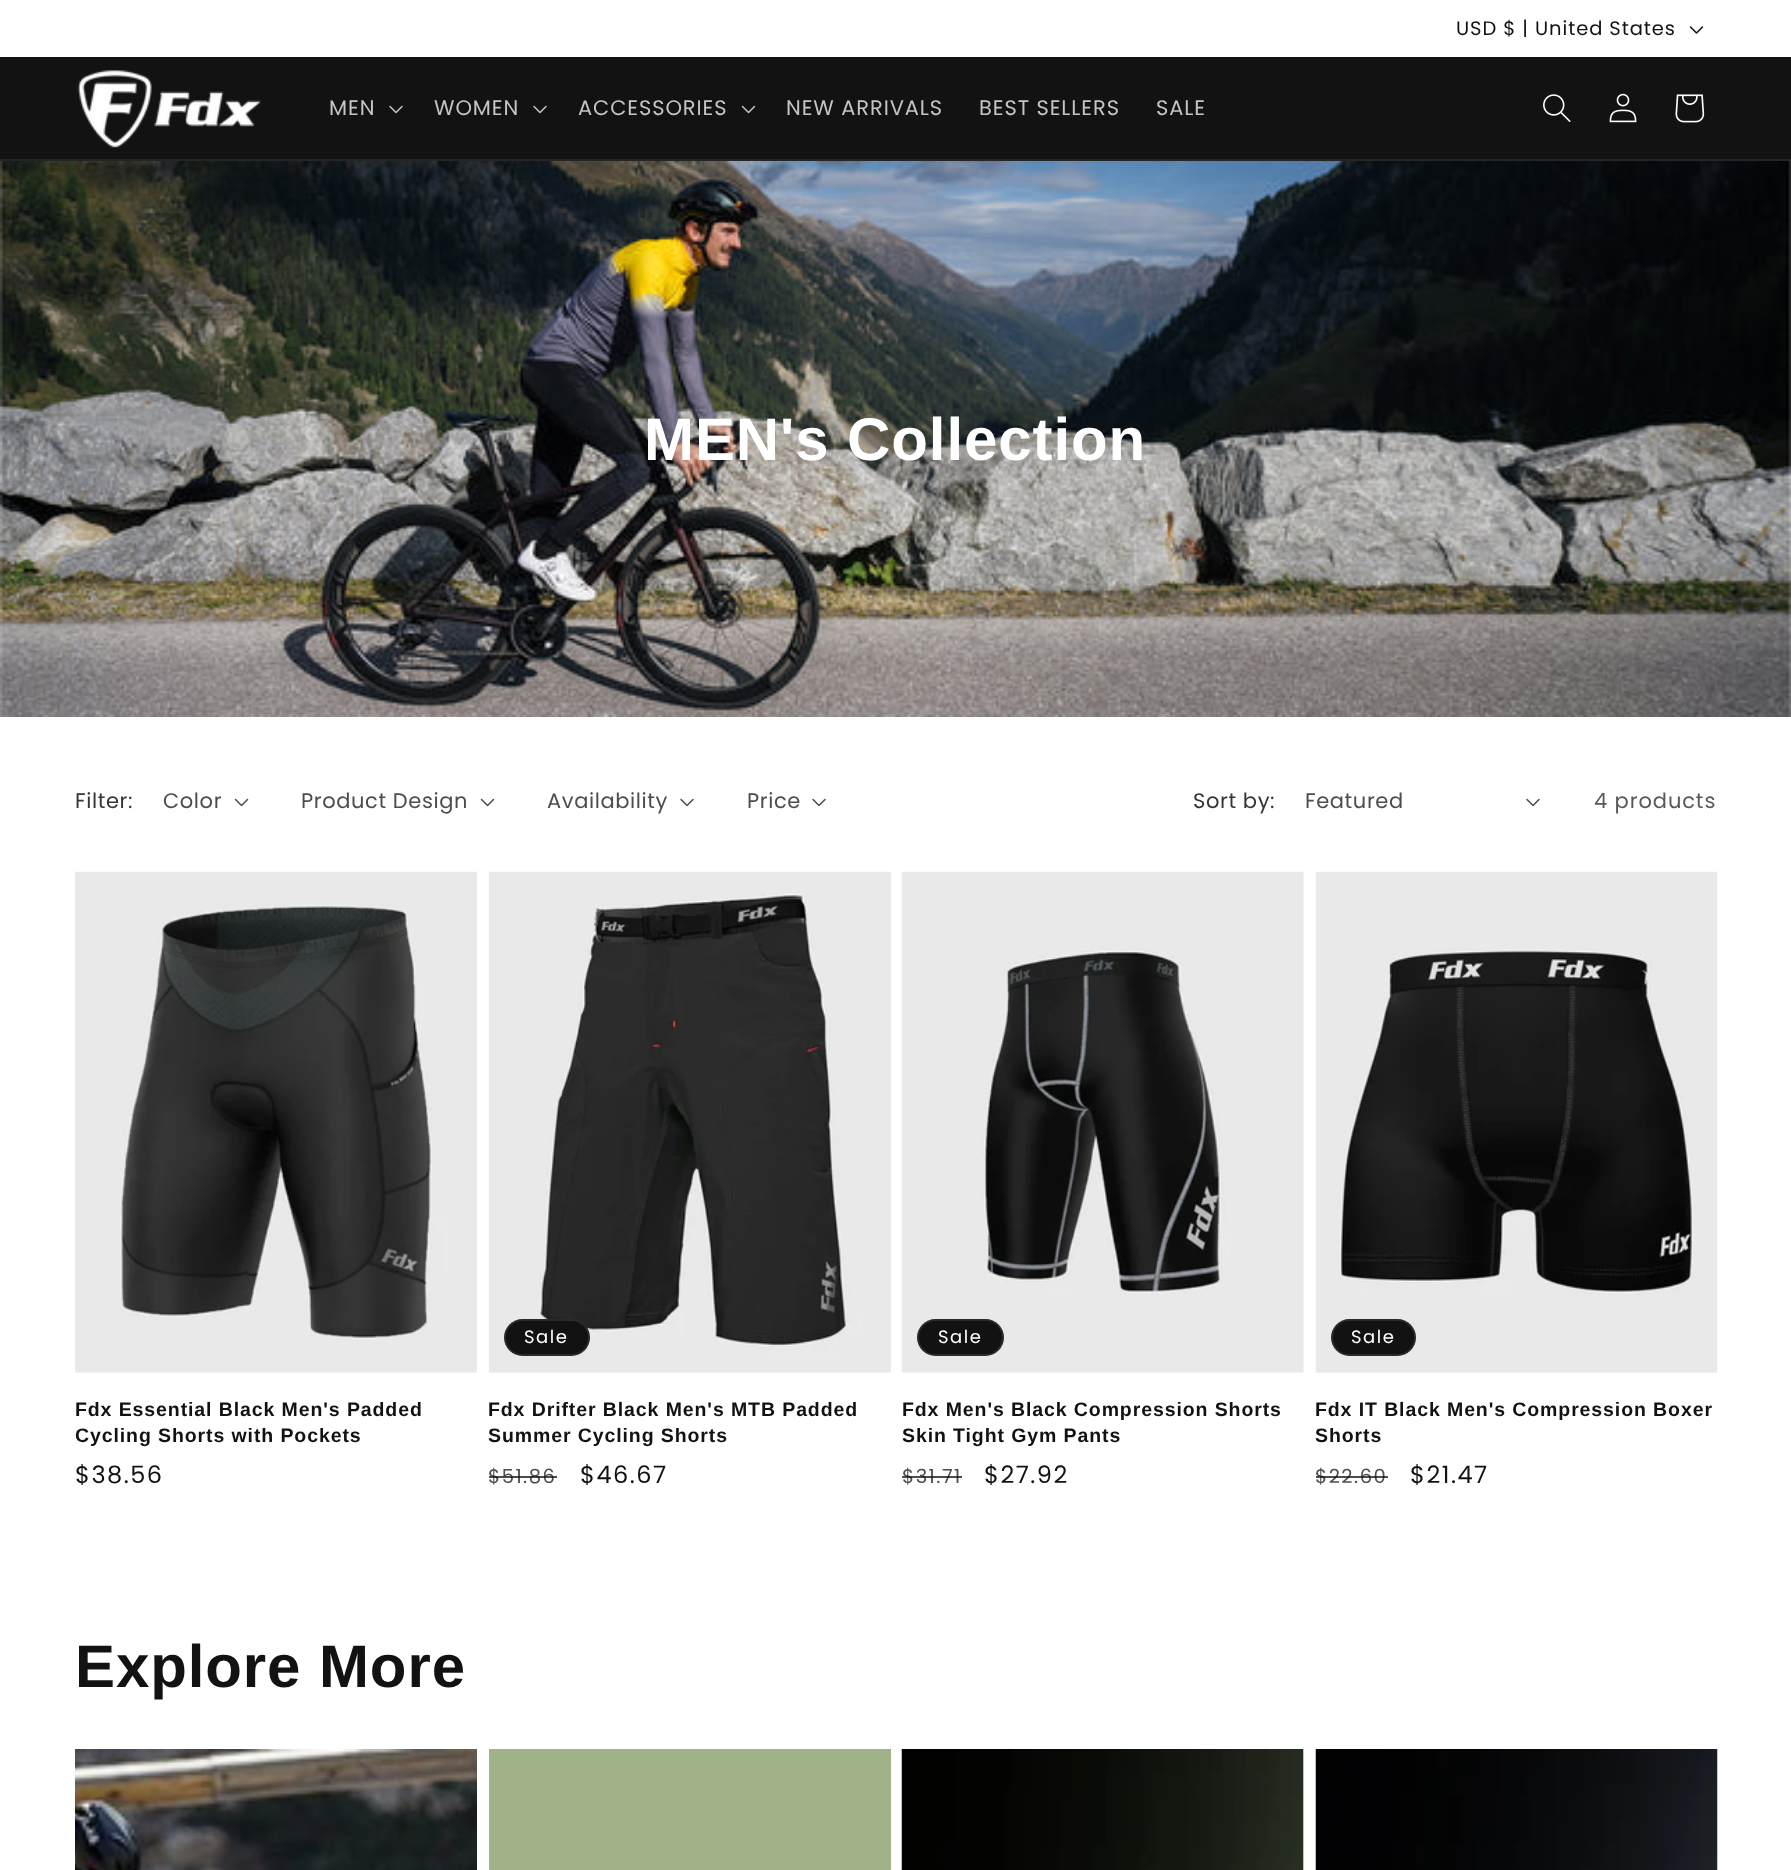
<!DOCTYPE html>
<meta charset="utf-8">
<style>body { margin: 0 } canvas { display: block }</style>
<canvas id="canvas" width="1791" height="1870"></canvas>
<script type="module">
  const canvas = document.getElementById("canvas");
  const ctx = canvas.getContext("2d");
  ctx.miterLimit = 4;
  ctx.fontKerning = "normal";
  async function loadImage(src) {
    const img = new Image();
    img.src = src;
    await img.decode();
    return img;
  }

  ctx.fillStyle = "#ffffff";
  ctx.fillRect(0, 0, 1791, 1870);
  ctx.letterSpacing = "0.9px";
  ctx.font = "19.5px Poppins";
  ctx.fillStyle = "#121212";
  ctx.fillText("USD $ | United States", 1456, 35);
  ctx.drawImage(await loadImage("img1.png"), 1689, 26, 15, 8);
  ctx.fillRect(0, 57, 1791, 102);
  ctx.fillStyle = "#252525";
  ctx.fillRect(0, 159, 1791, 2);
  ctx.drawImage(await loadImage("img2.png"), 77, 70, 184, 78);
  ctx.font = "21px Poppins";
  ctx.fillStyle = "#c4c4c4";
  ctx.fillText("MEN", 329, 115);
  ctx.drawImage(await loadImage("img3.png"), 389, 105, 14, 9);
  ctx.fillText("WOMEN", 434, 115);
  ctx.drawImage(await loadImage("img3.png"), 533, 105, 14, 9);
  ctx.fillText("ACCESSORIES", 578, 115);
  ctx.drawImage(await loadImage("img4.png"), 741, 105, 15, 9);
  ctx.fillText("NEW ARRIVALS", 786, 115);
  ctx.fillText("BEST SELLERS", 979, 115);
  ctx.fillText("SALE", 1156, 115);
  ctx.drawImage(await loadImage("img5.png"), 1543, 94, 28, 28);
  ctx.drawImage(await loadImage("img6.png"), 1609, 93, 28, 30);
  ctx.drawImage(await loadImage("img7.png"), 1675, 94, 30, 29);
  ctx.drawImage(await loadImage("img8.png"), 0, 161, 1791, 556);
  ctx.font = "bold 60px Liberation Sans";
  ctx.fillStyle = "#ffffff";
  ctx.fillText("MEN's Collection", 644, 460);
  ctx.letterSpacing = "0.6px";
  ctx.font = "21px Poppins";
  ctx.fillStyle = "#363636";
  ctx.fillText("Filter:", 75, 808);
  ctx.fillStyle = "#4d4d4d";
  ctx.fillText("Color", 163, 808);
  ctx.drawImage(await loadImage("img9.png"), 234, 798, 15, 9);
  ctx.fillText("Product Design", 301, 808);
  ctx.drawImage(await loadImage("img9.png"), 480, 798, 15, 9);
  ctx.fillText("Availability", 547, 808);
  ctx.drawImage(await loadImage("img10.png"), 680, 798, 14, 9);
  ctx.fillText("Price", 747, 808);
  ctx.drawImage(await loadImage("img10.png"), 812, 798, 14, 9);
  ctx.fillStyle = "#363636";
  ctx.fillText("Sort by:", 1193, 808);
  ctx.fillStyle = "#4d4d4d";
  ctx.fillText("Featured", 1305, 808);
  ctx.drawImage(await loadImage("img10.png"), 1526, 798, 14, 9);
  ctx.letterSpacing = "0.9px";
  ctx.fillStyle = "#595959";
  ctx.fillText("4 products", 1594, 808);
  ctx.fillStyle = "#f3f3f3";
  ctx.fillRect(75, 1372, 402, 1);
  ctx.drawImage(await loadImage("img11.png"), 75, 871, 402, 501);
  ctx.font = "bold 19.5px Liberation Sans";
  ctx.fillStyle = "#121212";
  ctx.fillText("Fdx Essential Black Men's Padded", 75, 1416);
  ctx.fillText("Cycling Shorts with Pockets", 75, 1442);
  ctx.letterSpacing = "1.5px";
  ctx.font = "24px Poppins";
  ctx.fillText("$38.56", 75, 1483);
  ctx.fillStyle = "#f3f3f3";
  ctx.fillRect(489, 1372, 401, 1);
  ctx.drawImage(await loadImage("img12.png"), 489, 871, 402, 502);
  ctx.fillStyle = "#121212";
  ctx.beginPath();
  ctx.roundRect(504, 1319, 86, 37, 18.5);
  ctx.fill();
  ctx.beginPath();
  ctx.roundRect(505, 1320, 84, 35, 17.5);
  ctx.strokeStyle = "rgba(255, 255, 255, 0.1)";
  ctx.lineWidth = 2;
  ctx.stroke();
  ctx.font = "18px Poppins";
  ctx.fillStyle = "#ffffff";
  ctx.fillText("Sale", 524, 1343);
  ctx.letterSpacing = "0.9px";
  ctx.font = "bold 19.5px Liberation Sans";
  ctx.fillStyle = "#121212";
  ctx.fillText("Fdx Drifter Black Men's MTB Padded", 488, 1416);
  ctx.fillText("Summer Cycling Shorts", 488, 1442);
  ctx.letterSpacing = "1.5px";
  ctx.font = "19.5px Poppins";
  ctx.fillStyle = "#4d4d4d";
  ctx.fillText("$51.86", 488, 1483);
  ctx.fillStyle = "rgba(18, 18, 18, 0.75)";
  ctx.fillRect(489, 1476, 68, 2);
  ctx.font = "24px Poppins";
  ctx.fillStyle = "#121212";
  ctx.fillText("$46.67", 580, 1483);
  ctx.fillStyle = "#f3f3f3";
  ctx.fillRect(902, 872, 402, 501);
  ctx.drawImage(await loadImage("img13.png"), 901, 871, 402, 501);
  ctx.fillStyle = "#121212";
  ctx.beginPath();
  ctx.roundRect(917, 1319, 87, 37, 18.5);
  ctx.fill();
  ctx.beginPath();
  ctx.roundRect(918, 1320, 85, 35, 17.5);
  ctx.stroke();
  ctx.font = "18px Poppins";
  ctx.fillStyle = "#ffffff";
  ctx.fillText("Sale", 938, 1343);
  ctx.letterSpacing = "0.9px";
  ctx.font = "bold 19.5px Liberation Sans";
  ctx.fillStyle = "#121212";
  ctx.fillText("Fdx Men's Black Compression Shorts", 902, 1416);
  ctx.fillText("Skin Tight Gym Pants", 902, 1442);
  ctx.letterSpacing = "1.5px";
  ctx.font = "19.5px Poppins";
  ctx.fillStyle = "#4d4d4d";
  ctx.fillText("$31.71", 902, 1483);
  ctx.fillStyle = "rgba(18, 18, 18, 0.75)";
  ctx.fillRect(902, 1476, 60, 2);
  ctx.font = "24px Poppins";
  ctx.fillStyle = "#121212";
  ctx.fillText("$27.92", 984, 1483);
  ctx.fillStyle = "#f3f3f3";
  ctx.fillRect(1316, 1372, 400, 1);
  ctx.drawImage(await loadImage("img14.png"), 1315, 871, 403, 502);
  ctx.fillStyle = "#121212";
  ctx.beginPath();
  ctx.roundRect(1331, 1319, 85, 37, 18.5);
  ctx.fill();
  ctx.beginPath();
  ctx.roundRect(1332, 1320, 83, 35, 17.5);
  ctx.stroke();
  ctx.font = "18px Poppins";
  ctx.fillStyle = "#ffffff";
  ctx.fillText("Sale", 1351, 1343);
  ctx.letterSpacing = "0.9px";
  ctx.font = "bold 19.5px Liberation Sans";
  ctx.fillStyle = "#121212";
  ctx.fillText("Fdx IT Black Men's Compression Boxer", 1315, 1416);
  ctx.fillText("Shorts", 1315, 1442);
  ctx.letterSpacing = "1.5px";
  ctx.font = "19.5px Poppins";
  ctx.fillStyle = "#4d4d4d";
  ctx.fillText("$22.60", 1315, 1483);
  ctx.fillStyle = "rgba(18, 18, 18, 0.75)";
  ctx.fillRect(1316, 1476, 72, 2);
  ctx.font = "24px Poppins";
  ctx.fillStyle = "#121212";
  ctx.fillText("$21.47", 1410, 1483);
  ctx.letterSpacing = "0.9px";
  ctx.font = "bold 60px Liberation Sans";
  ctx.fillText("Explore More", 75, 1687);
  ctx.drawImage(await loadImage("img15.png"), 75, 1749, 402, 121);
  ctx.fillStyle = "#a0b287";
  ctx.fillRect(489, 1749, 402, 121);
  ctx.fillStyle = "#f3f3f3";
  ctx.fillRect(1303, 1749, 1, 121);
  ctx.drawImage(await loadImage("img16.png"), 901, 1749, 403, 121);
  ctx.drawImage(await loadImage("img17.png"), 1315, 1749, 403, 121);
</script>
